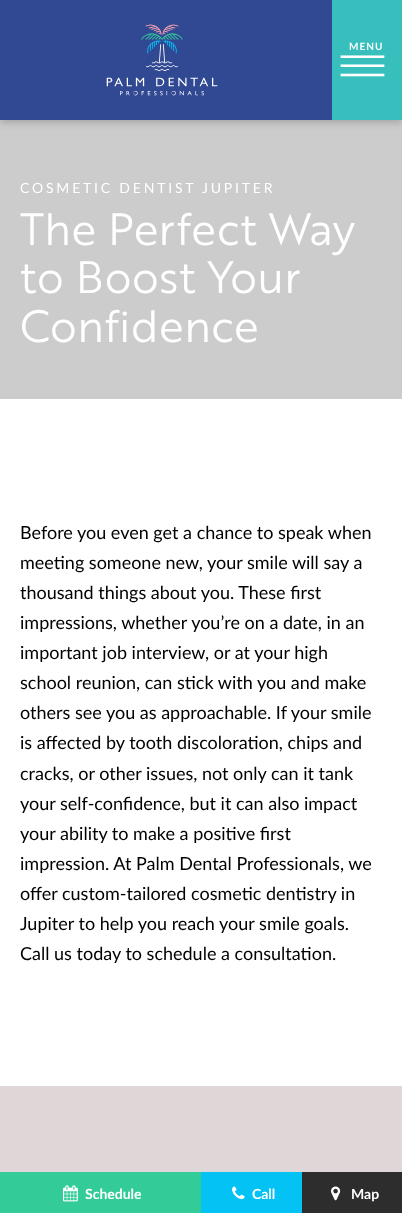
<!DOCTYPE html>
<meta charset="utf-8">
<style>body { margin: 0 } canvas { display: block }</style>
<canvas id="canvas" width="402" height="1213"></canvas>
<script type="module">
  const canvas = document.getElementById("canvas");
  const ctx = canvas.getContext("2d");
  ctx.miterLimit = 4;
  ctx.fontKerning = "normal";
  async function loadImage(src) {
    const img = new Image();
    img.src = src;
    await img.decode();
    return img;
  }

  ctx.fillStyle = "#ffffff";
  ctx.fillRect(0, 0, 402, 1213);
  ctx.fillStyle = "#cccccc";
  ctx.fillRect(0, 120, 402, 279);
  ctx.fillStyle = "rgba(24, 23, 24, 0.2)";
  ctx.filter = "blur(3.5px)";
  ctx.beginPath();
  ctx.rect(0, 3, 402, 120);
  ctx.fill();
  ctx.filter = "none";
  ctx.fillStyle = "#314893";
  ctx.fillRect(0, 0, 332, 120);
  ctx.drawImage(await loadImage("img1.png"), 106, 24, 112, 72);
  ctx.fillStyle = "#36bfbc";
  ctx.fillRect(332, 0, 70, 120);
  ctx.letterSpacing = "1px";
  ctx.font = "bold 10px Lato";
  ctx.fillStyle = "#ffffff";
  ctx.fillText("MENU", 349, 50);
  ctx.letterSpacing = "-0.5px";
  ctx.font = "48px Liberation Serif";
  ctx.save();
  ctx.translate(351, 52);
  ctx.rotate(90 * Math.PI / 180);
  ctx.fillText("|||", 0, 0);
  ctx.restore();
  ctx.letterSpacing = "2.8px";
  ctx.font = "14px Lato";
  ctx.fillText("COSMETIC DENTIST JUPITER", 20, 193);
  ctx.letterSpacing = "0px";
  ctx.font = "44px 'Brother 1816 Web'";
  ctx.fillText("The Perfect Way", 20, 245);
  ctx.fillText("to Boost Your", 20, 293);
  ctx.fillText("Confidence", 20, 342);
  ctx.font = "18px Lato";
  ctx.fillStyle = "#000000";
  ctx.fillText("Before you even get a chance to speak when", 20, 539);
  ctx.fillText("meeting someone new, your smile will say a", 20, 569);
  ctx.fillText("thousand things about you. These first", 20, 599);
  ctx.fillText("impressions, whether you’re on a date, in an", 20, 629);
  ctx.fillText("important job interview, or at your high", 20, 659);
  ctx.fillText("school reunion, can stick with you and make", 20, 689);
  ctx.fillText("others see you as approachable. If your smile", 20, 719);
  ctx.fillText("is affected by tooth discoloration, chips and", 20, 749);
  ctx.fillText("cracks, or other issues, not only can it tank", 20, 780);
  ctx.fillText("your self-confidence, but it can also impact", 20, 810);
  ctx.fillText("your ability to make a positive first", 20, 840);
  ctx.fillText("impression. At Palm Dental Professionals, we", 20, 870);
  ctx.fillText("offer custom-tailored cosmetic dentistry in", 20, 900);
  ctx.fillText("Jupiter to help you reach your smile goals.", 20, 930);
  ctx.fillText("Call us today to schedule a consultation.", 20, 960);
  ctx.fillStyle = "#dfd6d7";
  ctx.fillRect(0, 1086, 402, 86);
  ctx.fillStyle = "#33cc99";
  ctx.fillRect(0, 1172, 201, 41);
  ctx.drawImage(await loadImage("img2.png"), 63, 1185, 15, 17);
  ctx.font = "bold 14px Lato";
  ctx.fillStyle = "#ffffff";
  ctx.fillText("Schedule", 85, 1199);
  ctx.fillStyle = "#05c2f5";
  ctx.fillRect(201, 1172, 101, 41);
  ctx.drawImage(await loadImage("img3.png"), 232, 1186, 13, 14);
  ctx.fillStyle = "#ffffff";
  ctx.fillText("Call", 252, 1199);
  ctx.fillStyle = "#2e2d2d";
  ctx.fillRect(302, 1172, 100, 41);
  ctx.drawImage(await loadImage("img4.png"), 331, 1186, 10, 15);
  ctx.fillStyle = "#ffffff";
  ctx.fillText("Map", 351, 1199);
</script>
